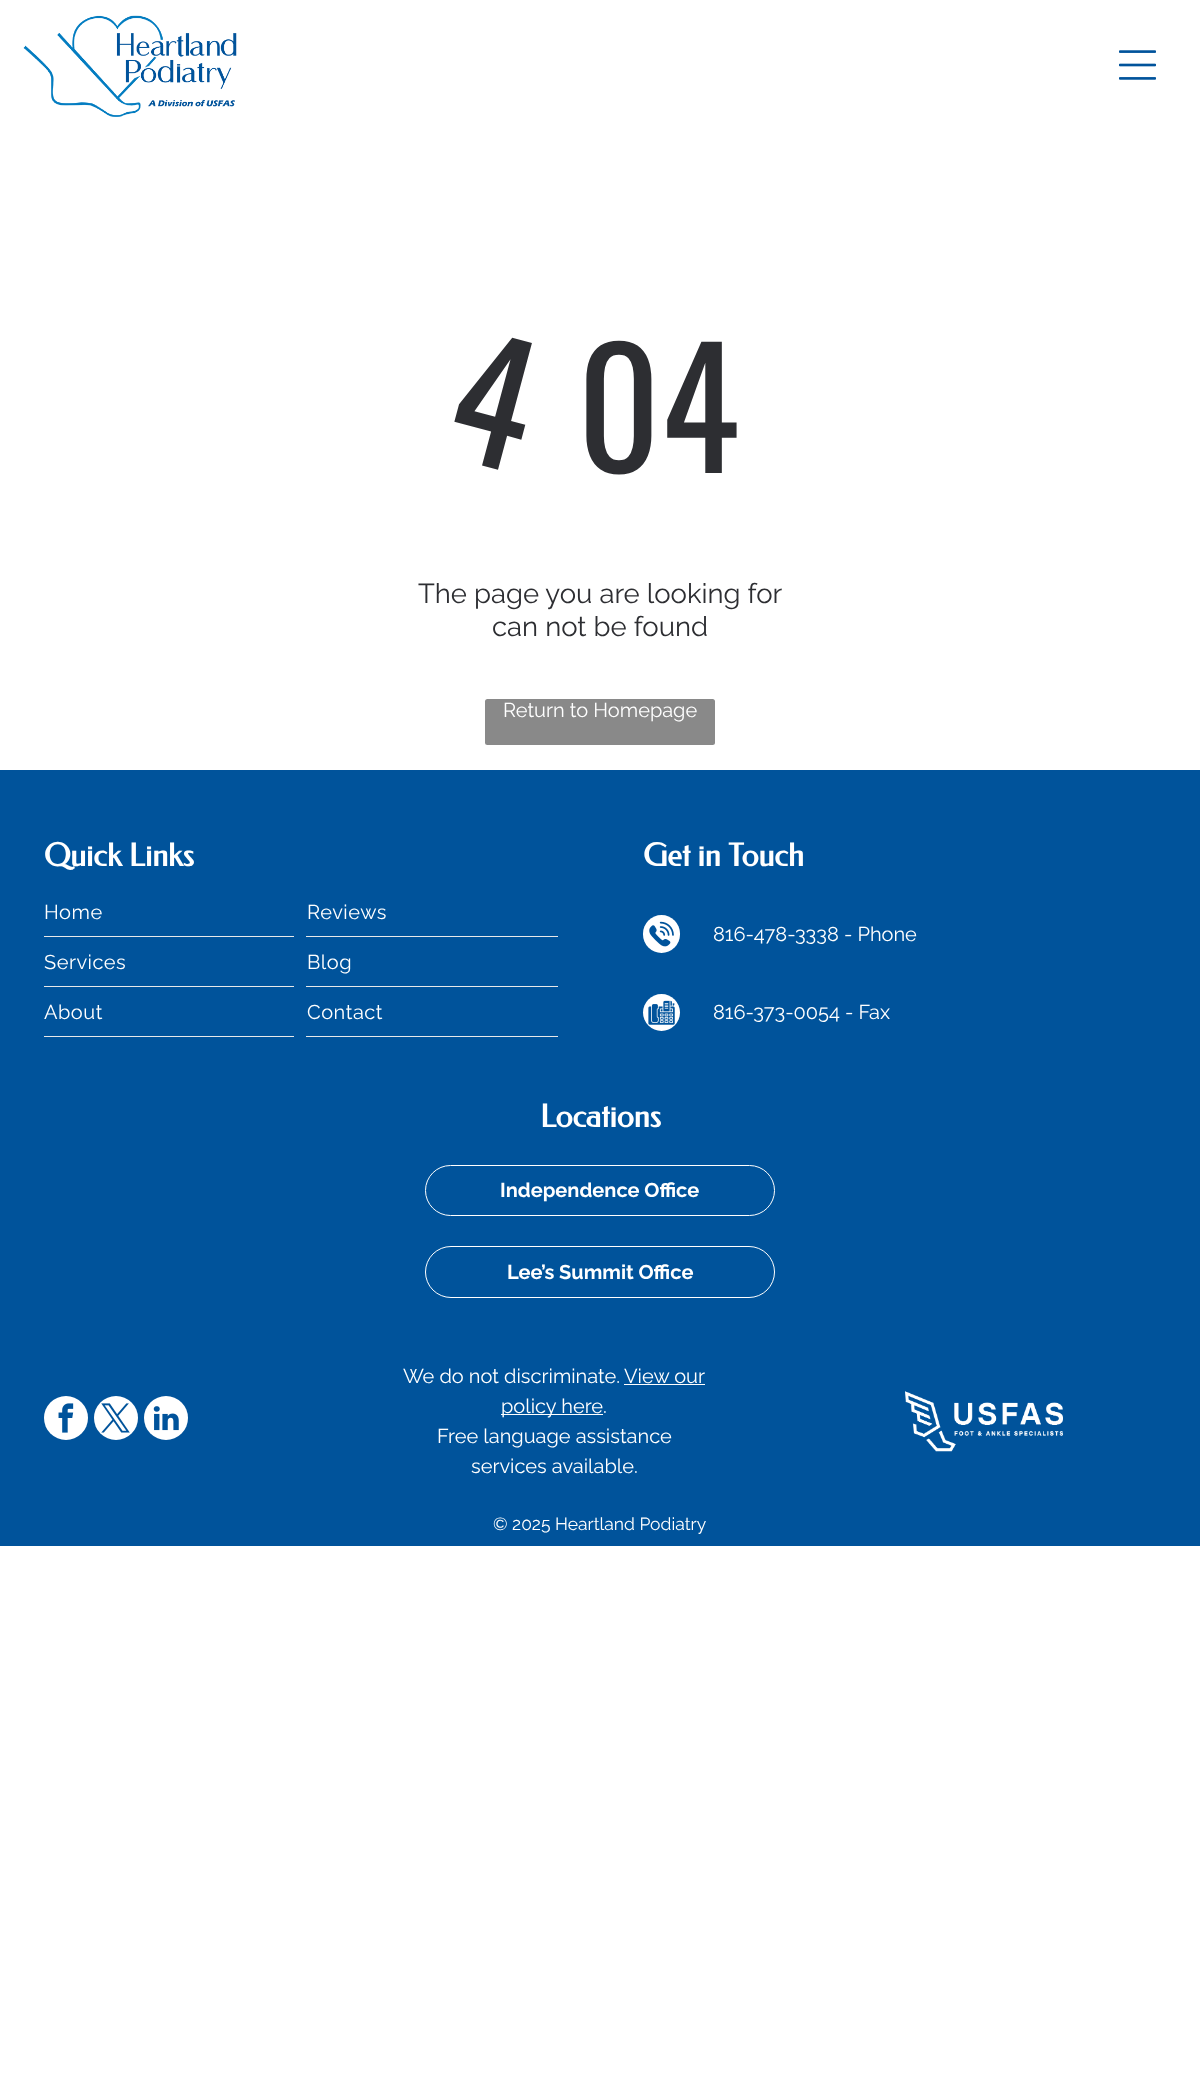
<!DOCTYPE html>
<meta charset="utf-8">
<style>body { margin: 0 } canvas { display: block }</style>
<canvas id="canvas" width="1200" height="2077"></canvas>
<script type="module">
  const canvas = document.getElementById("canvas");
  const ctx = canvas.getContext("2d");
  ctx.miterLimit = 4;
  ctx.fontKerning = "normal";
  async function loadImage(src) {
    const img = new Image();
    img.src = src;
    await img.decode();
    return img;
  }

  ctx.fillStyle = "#ffffff";
  ctx.fillRect(0, 0, 1200, 2077);
  ctx.drawImage(await loadImage("img1.png"), 23, 15, 214, 102);
  ctx.drawImage(await loadImage("img2.png"), 1119, 50, 37, 30);
  ctx.font = "162px Oswald";
  ctx.fillStyle = "#2d2e32";
  ctx.save();
  ctx.translate(439, 454);
  ctx.rotate(15 * Math.PI / 180);
  ctx.fillText("4", 0, 0);
  ctx.restore();
  ctx.fillText("04", 577, 473);
  ctx.font = "27.5px Raleway";
  ctx.fillText("The page you are looking for", 418, 603);
  ctx.fillText("can not be found", 492, 636);
  ctx.fillStyle = "#898989";
  ctx.beginPath();
  ctx.roundRect(485, 699, 230, 46, 2.5);
  ctx.fill();
  ctx.font = "20px Raleway";
  ctx.fillStyle = "#ffffff";
  ctx.fillText("Return to Homepage", 503, 717);
  ctx.fillStyle = "#00539b";
  ctx.fillRect(0, 770, 1200, 776);
  ctx.font = "bold 31.25px Federo";
  ctx.fillStyle = "#ffffff";
  ctx.fillText("Quick Links", 44, 866);
  ctx.letterSpacing = "0.5px";
  ctx.font = "20px Raleway";
  ctx.fillText("Home", 44, 919);
  ctx.fillStyle = "#e7e8ea";
  ctx.fillRect(44, 936, 250, 1);
  ctx.fillStyle = "#ffffff";
  ctx.fillText("Services", 44, 969);
  ctx.fillStyle = "#e7e8ea";
  ctx.fillRect(44, 986, 250, 1);
  ctx.fillStyle = "#ffffff";
  ctx.fillText("About", 44, 1019);
  ctx.fillStyle = "#e7e8ea";
  ctx.fillRect(44, 1036, 250, 1);
  ctx.fillStyle = "#ffffff";
  ctx.fillText("Reviews", 307, 919);
  ctx.fillStyle = "#e7e8ea";
  ctx.fillRect(306, 936, 252, 1);
  ctx.fillStyle = "#ffffff";
  ctx.fillText("Blog", 307, 969);
  ctx.fillStyle = "#e7e8ea";
  ctx.fillRect(306, 986, 252, 1);
  ctx.fillStyle = "#ffffff";
  ctx.fillText("Contact", 307, 1019);
  ctx.fillStyle = "#e7e8ea";
  ctx.fillRect(306, 1036, 252, 1);
  ctx.letterSpacing = "0px";
  ctx.font = "bold 31.25px Federo";
  ctx.fillStyle = "#ffffff";
  ctx.fillText("Get in Touch", 643, 866);
  ctx.beginPath();
  ctx.roundRect(643, 915, 37, 38, 18.5);
  ctx.fill();
  ctx.drawImage(await loadImage("img3.png"), 649, 921, 25, 26);
  ctx.font = "20px Raleway";
  ctx.fillText("816-478-3338 - Phone", 713, 941);
  ctx.beginPath();
  ctx.arc(661.5, 1012.5, 18.5, 0, Math.PI * 2);
  ctx.fill();
  ctx.drawImage(await loadImage("img4.png"), 648, 1000, 27, 25);
  ctx.fillText("816-373-0054 - Fax", 713, 1019);
  ctx.font = "bold 31.25px Federo";
  ctx.fillText("Locations", 540, 1127);
  ctx.beginPath();
  ctx.roundRect(425.5, 1165.5, 349, 50, 25);
  ctx.strokeStyle = "#ffffff";
  ctx.stroke();
  ctx.font = "bold 20px Raleway";
  ctx.fillText("Independence Office", 500, 1197);
  ctx.beginPath();
  ctx.roundRect(425.5, 1246.5, 349, 51, 25.5);
  ctx.stroke();
  ctx.fillText("Lee’s Summit Office", 507, 1279);
  ctx.beginPath();
  ctx.arc(66, 1418, 22, 0, Math.PI * 2);
  ctx.fill();
  ctx.drawImage(await loadImage("img5.png"), 58, 1403, 16, 30);
  ctx.beginPath();
  ctx.arc(116, 1418, 22, 0, Math.PI * 2);
  ctx.fill();
  ctx.drawImage(await loadImage("img6.png"), 101, 1403, 29, 30);
  ctx.beginPath();
  ctx.arc(166, 1418, 22, 0, Math.PI * 2);
  ctx.fill();
  ctx.drawImage(await loadImage("img7.png"), 153, 1406, 26, 25);
  ctx.font = "20px Raleway";
  ctx.fillText("We do not discriminate.", 403, 1383);
  ctx.fillText("View our", 624, 1383);
  ctx.fillRect(624, 1384, 81, 1);
  ctx.fillRect(501, 1414, 102, 1);
  ctx.fillText("policy here.", 501, 1413);
  ctx.fillText("Free language assistance", 437, 1443);
  ctx.fillText("services available.", 471, 1473);
  ctx.drawImage(await loadImage("img8.png"), 905, 1391, 158, 61);
  ctx.font = "17.5px Raleway";
  ctx.fillText("© 2025 Heartland Podiatry", 493, 1530);
</script>
